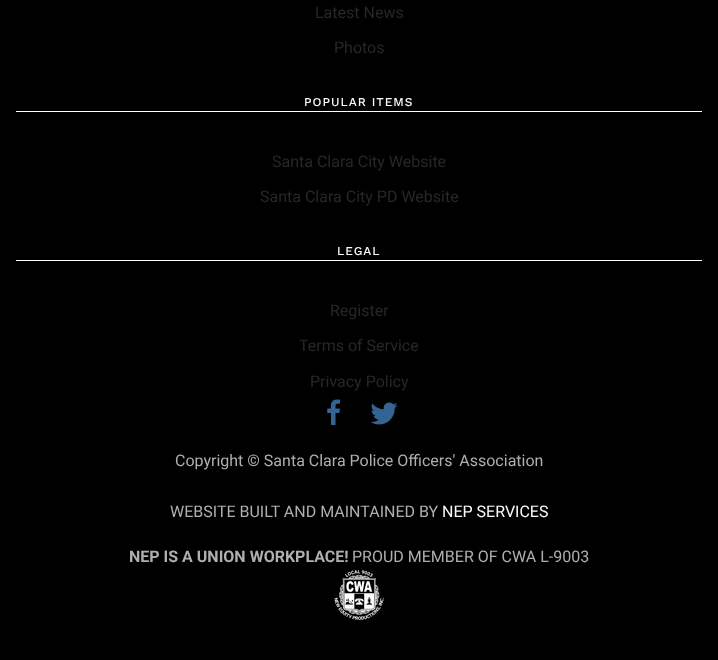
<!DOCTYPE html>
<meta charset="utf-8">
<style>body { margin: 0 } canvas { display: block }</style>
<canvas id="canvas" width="718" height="660"></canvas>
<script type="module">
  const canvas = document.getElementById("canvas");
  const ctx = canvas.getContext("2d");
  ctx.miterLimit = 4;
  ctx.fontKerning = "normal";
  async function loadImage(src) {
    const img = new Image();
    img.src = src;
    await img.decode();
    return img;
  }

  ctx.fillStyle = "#000000";
  ctx.fillRect(0, 0, 718, 660);
  ctx.font = "16px Roboto";
  ctx.fillStyle = "#272727";
  ctx.fillText("Latest News", 315, 18);
  ctx.fillText("Photos", 334, 53);
  ctx.fillStyle = "#ffffff";
  ctx.fillRect(16, 111, 686, 1);
  ctx.letterSpacing = "1px";
  ctx.font = "500 12px Work Sans";
  ctx.fillStyle = "#fafafa";
  ctx.fillText("POPULAR ITEMS", 304, 106);
  ctx.letterSpacing = "0px";
  ctx.font = "16px Roboto";
  ctx.fillStyle = "#272727";
  ctx.fillText("Santa Clara City Website", 272, 167);
  ctx.fillText("Santa Clara City PD Website", 260, 202);
  ctx.fillStyle = "#ffffff";
  ctx.fillRect(16, 260, 686, 1);
  ctx.letterSpacing = "1px";
  ctx.font = "500 12px Work Sans";
  ctx.fillStyle = "#fafafa";
  ctx.fillText("LEGAL", 337, 255);
  ctx.letterSpacing = "0px";
  ctx.font = "16px Roboto";
  ctx.fillStyle = "#272727";
  ctx.fillText("Register", 330, 316);
  ctx.fillText("Terms of Service", 299, 351);
  ctx.fillText("Privacy Policy", 310, 387);
  ctx.drawImage(await loadImage("img1.png"), 327, 399, 13, 26);
  ctx.drawImage(await loadImage("img2.png"), 370, 402, 28, 23);
  ctx.fillStyle = "#afafaf";
  ctx.fillText("Copyright © Santa Clara Police Officers' Association", 175, 466);
  ctx.fillText("WEBSITE BUILT AND MAINTAINED BY", 170, 517);
  ctx.fillStyle = "#fafafa";
  ctx.fillText("NEP SERVICES", 442, 517);
  ctx.font = "bold 16px Roboto";
  ctx.fillStyle = "#afafaf";
  ctx.fillText("NEP IS A UNION WORKPLACE!", 129, 562);
  ctx.font = "16px Roboto";
  ctx.fillText("PROUD MEMBER OF CWA L-9003", 352, 562);
  ctx.drawImage(await loadImage("img3.png"), 334, 570, 50, 50);
</script>
